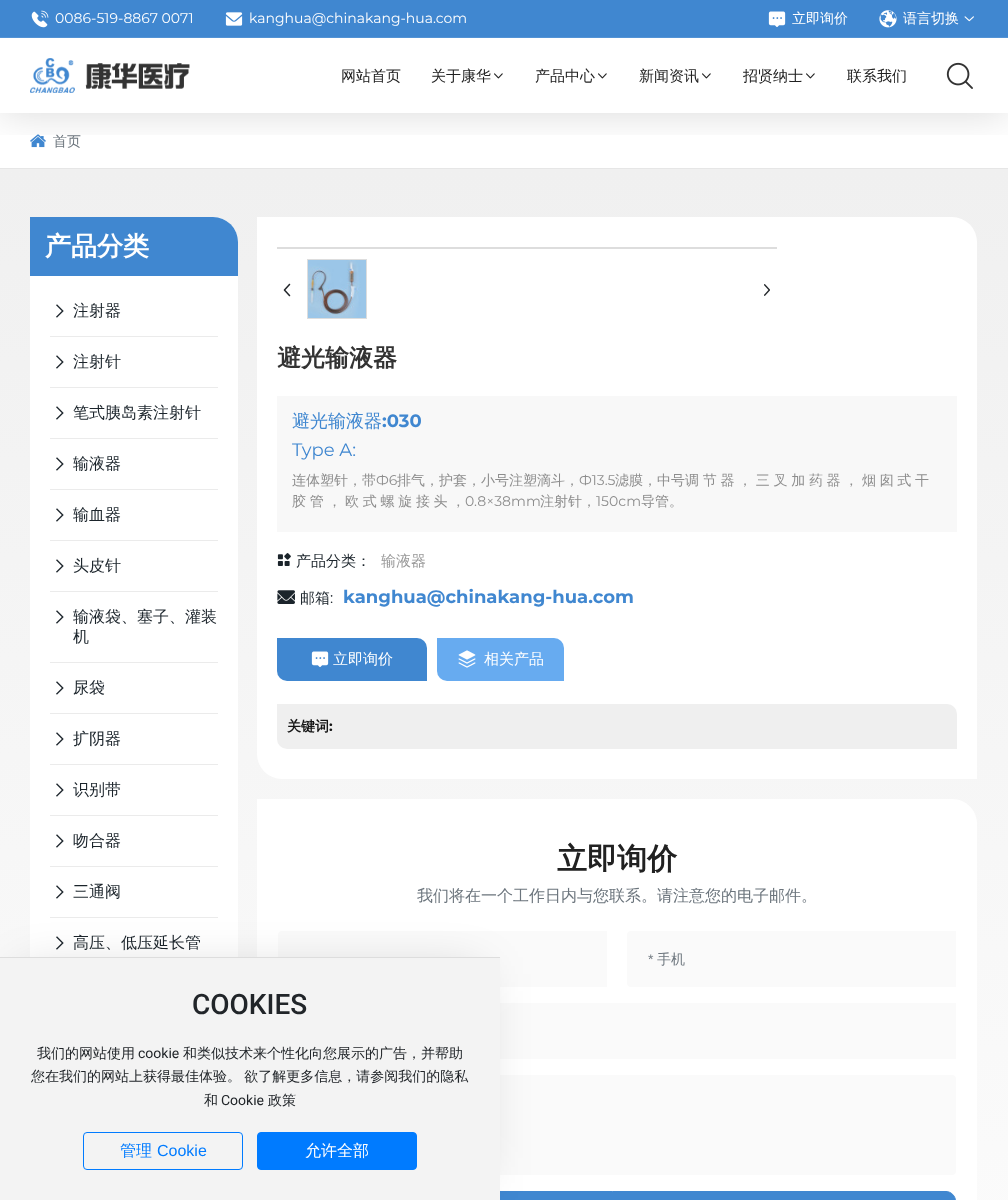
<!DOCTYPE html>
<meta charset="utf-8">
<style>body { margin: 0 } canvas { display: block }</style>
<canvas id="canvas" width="1008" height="1200"></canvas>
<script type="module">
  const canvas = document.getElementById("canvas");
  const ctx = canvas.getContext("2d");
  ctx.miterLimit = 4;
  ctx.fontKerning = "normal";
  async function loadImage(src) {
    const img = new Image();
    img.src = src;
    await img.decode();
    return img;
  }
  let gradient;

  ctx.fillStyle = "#ffffff";
  ctx.fillRect(0, 0, 1008, 1200);
  ctx.fillStyle = "#e6e6e6";
  ctx.fillRect(0, 168, 1008, 1);
  ctx.drawImage(await loadImage("img9.png"), 30, 134, 16, 14);
  gradient = ctx.createLinearGradient(504, 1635, 504, 169);
  gradient.addColorStop(0, "#ffffff");
  gradient.addColorStop(1, "#f0f0f0");
  ctx.fillStyle = gradient;
  ctx.fillRect(0, 169, 1008, 1031);
  ctx.save();
  ctx.beginPath();
  ctx.rect(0, 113, 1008, 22);
  ctx.clip();
  ctx.fillStyle = "rgba(0, 0, 0, 0.15)";
  ctx.filter = "blur(20px)";
  ctx.beginPath();
  ctx.rect(0, 0, 1008, 113);
  ctx.fill();
  ctx.filter = "none";
  ctx.restore();
  ctx.fillStyle = "#4087d0";
  ctx.fillRect(0, 0, 1008, 37);
  ctx.fillStyle = "#5393d5";
  ctx.fillRect(0, 37, 1008, 1);
  ctx.drawImage(await loadImage("img1.png"), 31, 10, 18, 18);
  ctx.font = "14px Montserrat";
  ctx.fillStyle = "#ffffff";
  ctx.fillText("0086-519-8867 0071", 55, 23);
  ctx.drawImage(await loadImage("img2.png"), 225, 12, 18, 14);
  ctx.fillText("kanghua@chinakang-hua.com", 249, 23);
  ctx.drawImage(await loadImage("img3.png"), 768, 11, 18, 16);
  ctx.font = "500 14px WenQuanYi Zen Hei";
  ctx.fillText("立即询价", 792, 23);
  ctx.drawImage(await loadImage("img4.png"), 879, 10, 18, 18);
  ctx.fillText("语言切换", 903, 23);
  ctx.drawImage(await loadImage("img5.png"), 964, 16, 10, 6);
  ctx.drawImage(await loadImage("img6.png"), 30, 58, 160, 35);
  ctx.font = "500 15px WenQuanYi Zen Hei";
  ctx.fillStyle = "#212121";
  ctx.fillText("网站首页", 341, 81);
  ctx.fillText("关于康华", 431, 81);
  ctx.drawImage(await loadImage("img7.png"), 494, 73, 9, 6);
  ctx.fillText("产品中心", 535, 81);
  ctx.drawImage(await loadImage("img7.png"), 598, 73, 9, 6);
  ctx.fillText("新闻资讯", 639, 81);
  ctx.drawImage(await loadImage("img7.png"), 702, 73, 9, 6);
  ctx.fillText("招贤纳士", 743, 81);
  ctx.drawImage(await loadImage("img7.png"), 806, 73, 9, 6);
  ctx.fillText("联系我们", 847, 81);
  ctx.drawImage(await loadImage("img8.png"), 946, 62, 27, 27);
  ctx.font = "500 14px WenQuanYi Zen Hei";
  ctx.fillStyle = "#6c757d";
  ctx.fillText("首页", 53, 146);
  ctx.fillStyle = "#ffffff";
  ctx.beginPath();
  ctx.roundRect(30, 217, 208, 782, [0, 25, 0, 25]);
  ctx.fill();
  ctx.fillStyle = "#4087d0";
  ctx.beginPath();
  ctx.roundRect(30, 217, 208, 59, [0, 25, 0, 0]);
  ctx.fill();
  ctx.font = "bold 26px WenQuanYi Zen Hei";
  ctx.fillStyle = "#ffffff";
  ctx.fillText("产品分类", 45, 255);
  ctx.fillStyle = "#ebebeb";
  ctx.fillRect(50, 336, 168, 1);
  ctx.drawImage(await loadImage("img10.png"), 56, 304, 8, 14);
  ctx.font = "500 16px WenQuanYi Zen Hei";
  ctx.fillStyle = "#1b242b";
  ctx.fillText("注射器", 73, 316);
  ctx.fillStyle = "#ebebeb";
  ctx.fillRect(50, 387, 168, 1);
  ctx.drawImage(await loadImage("img10.png"), 56, 355, 8, 14);
  ctx.fillStyle = "#1b242b";
  ctx.fillText("注射针", 73, 367);
  ctx.fillStyle = "#ebebeb";
  ctx.fillRect(50, 438, 168, 1);
  ctx.drawImage(await loadImage("img10.png"), 56, 406, 8, 14);
  ctx.fillStyle = "#1b242b";
  ctx.fillText("笔式胰岛素注射针", 73, 418);
  ctx.fillStyle = "#ebebeb";
  ctx.fillRect(50, 489, 168, 1);
  ctx.drawImage(await loadImage("img10.png"), 56, 457, 8, 14);
  ctx.fillStyle = "#1b242b";
  ctx.fillText("输液器", 73, 469);
  ctx.fillStyle = "#ebebeb";
  ctx.fillRect(50, 540, 168, 1);
  ctx.drawImage(await loadImage("img10.png"), 56, 508, 8, 14);
  ctx.fillStyle = "#1b242b";
  ctx.fillText("输血器", 73, 520);
  ctx.fillStyle = "#ebebeb";
  ctx.fillRect(50, 591, 168, 1);
  ctx.drawImage(await loadImage("img10.png"), 56, 559, 8, 14);
  ctx.fillStyle = "#1b242b";
  ctx.fillText("头皮针", 73, 571);
  ctx.fillStyle = "#ebebeb";
  ctx.fillRect(50, 662, 168, 1);
  ctx.drawImage(await loadImage("img10.png"), 56, 610, 8, 14);
  ctx.fillStyle = "#1b242b";
  ctx.fillText("输液袋、塞子、灌装", 73, 622);
  ctx.fillText("机", 73, 642);
  ctx.fillStyle = "#ebebeb";
  ctx.fillRect(50, 713, 168, 1);
  ctx.drawImage(await loadImage("img10.png"), 56, 681, 8, 14);
  ctx.fillStyle = "#1b242b";
  ctx.fillText("尿袋", 73, 693);
  ctx.fillStyle = "#ebebeb";
  ctx.fillRect(50, 764, 168, 1);
  ctx.drawImage(await loadImage("img10.png"), 56, 732, 8, 14);
  ctx.fillStyle = "#1b242b";
  ctx.fillText("扩阴器", 73, 744);
  ctx.fillStyle = "#ebebeb";
  ctx.fillRect(50, 815, 168, 1);
  ctx.drawImage(await loadImage("img10.png"), 56, 783, 8, 14);
  ctx.fillStyle = "#1b242b";
  ctx.fillText("识别带", 73, 795);
  ctx.fillStyle = "#ebebeb";
  ctx.fillRect(50, 866, 168, 1);
  ctx.drawImage(await loadImage("img10.png"), 56, 834, 8, 14);
  ctx.fillStyle = "#1b242b";
  ctx.fillText("吻合器", 73, 846);
  ctx.fillStyle = "#ebebeb";
  ctx.fillRect(50, 917, 168, 1);
  ctx.drawImage(await loadImage("img10.png"), 56, 885, 8, 14);
  ctx.fillStyle = "#1b242b";
  ctx.fillText("三通阀", 73, 897);
  ctx.drawImage(await loadImage("img10.png"), 56, 936, 8, 14);
  ctx.fillText("高压、低压延长管", 73, 948);
  ctx.fillStyle = "#ffffff";
  ctx.beginPath();
  ctx.roundRect(257, 217, 720, 562, [0, 25, 0, 25]);
  ctx.fill();
  ctx.fillStyle = "#dddddd";
  ctx.fillRect(277, 247, 500, 2);
  ctx.strokeStyle = "#dddddd";
  ctx.strokeRect(307.5, 259.5, 59, 59);
  ctx.drawImage(await loadImage("img11.png"), 308, 260, 58, 58);
  ctx.drawImage(await loadImage("img12.png"), 283, 283, 8, 14);
  ctx.drawImage(await loadImage("img13.png"), 764, 284, 6, 12);
  ctx.font = "bold 24px WenQuanYi Zen Hei";
  ctx.fillStyle = "#333333";
  ctx.fillText("避光输液器", 277, 366);
  ctx.fillStyle = "#f8f8f8";
  ctx.fillRect(277, 396, 680, 136);
  ctx.font = "500 18px WenQuanYi Zen Hei";
  ctx.fillStyle = "#4087d0";
  ctx.fillText("避光输液器", 292, 427);
  ctx.font = "bold 18px Montserrat";
  ctx.fillText(":030", 382, 427);
  ctx.font = "18px Montserrat";
  ctx.fillText("Type A:", 292, 456);
  ctx.font = "500 14px WenQuanYi Zen Hei";
  ctx.fillStyle = "#8d8d8d";
  ctx.fillText("连体塑针，带", 292, 485);
  ctx.font = "14px Montserrat";
  ctx.fillText("Ф6", 376, 485);
  ctx.font = "500 14px WenQuanYi Zen Hei";
  ctx.fillText("排气，护套，小号注塑滴斗，", 397, 485);
  ctx.font = "14px Montserrat";
  ctx.fillText("Ф13.5", 579, 485);
  ctx.wordSpacing = "-0.5px";
  ctx.font = "500 14px WenQuanYi Zen Hei";
  ctx.fillText("滤膜，中号调 节 器 ， 三 叉 加 药 器 ， 烟 囱 式 干", 615, 485);
  ctx.fillText("胶 管 ， 欧 式 螺 旋 接 头 ，", 292, 506);
  ctx.wordSpacing = "0px";
  ctx.font = "14px Montserrat";
  ctx.fillText("0.8×38mm", 465, 506);
  ctx.font = "500 14px WenQuanYi Zen Hei";
  ctx.fillText("注射针，", 540, 506);
  ctx.font = "14px Montserrat";
  ctx.fillText("150cm", 596, 506);
  ctx.font = "500 14px WenQuanYi Zen Hei";
  ctx.fillText("导管。", 641, 506);
  ctx.drawImage(await loadImage("img14.png"), 277, 553, 14, 13);
  ctx.font = "500 15px WenQuanYi Zen Hei";
  ctx.fillStyle = "#1b242b";
  ctx.fillText("产品分类：", 296, 566);
  ctx.fillStyle = "#999999";
  ctx.fillText("输液器", 381, 566);
  ctx.drawImage(await loadImage("img15.png"), 277, 590, 18, 14);
  ctx.fillStyle = "#1b242b";
  ctx.fillText("邮箱", 300, 603);
  ctx.font = "15px Montserrat";
  ctx.fillText(":", 330, 603);
  ctx.font = "bold 18px Montserrat";
  ctx.fillStyle = "#4087d0";
  ctx.fillText("kanghua@chinakang-hua.com", 343, 603);
  ctx.beginPath();
  ctx.roundRect(277, 638, 150, 43, [0, 10, 0, 10]);
  ctx.fill();
  ctx.drawImage(await loadImage("img3.png"), 311, 651, 18, 16);
  ctx.font = "500 15px WenQuanYi Zen Hei";
  ctx.fillStyle = "#ffffff";
  ctx.fillText("立即询价", 333, 664);
  ctx.fillStyle = "#67abf0";
  ctx.beginPath();
  ctx.roundRect(437, 638, 127, 43, [0, 10, 0, 10]);
  ctx.fill();
  ctx.drawImage(await loadImage("img16.png"), 458, 650, 18, 18);
  ctx.fillStyle = "#ffffff";
  ctx.fillText("相关产品", 484, 664);
  ctx.fillStyle = "#efefef";
  ctx.beginPath();
  ctx.roundRect(277, 704, 680, 45, [0, 10, 0, 10]);
  ctx.fill();
  ctx.font = "bold 14px WenQuanYi Zen Hei";
  ctx.fillStyle = "#151515";
  ctx.fillText("关键词", 287, 731);
  ctx.font = "bold 14px Montserrat";
  ctx.fillText(":", 329, 731);
  ctx.fillStyle = "#ffffff";
  ctx.beginPath();
  ctx.moveTo(257, 799);
  ctx.lineTo(952, 799);
  ctx.bezierCurveTo(966, 799, 977, 810, 977, 824);
  ctx.lineTo(977, 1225);
  ctx.lineTo(282, 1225);
  ctx.bezierCurveTo(268, 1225, 257, 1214, 257, 1200);
  ctx.closePath();
  ctx.fill();
  ctx.font = "bold 30px WenQuanYi Zen Hei";
  ctx.fillStyle = "#212121";
  ctx.fillText("立即询价", 557, 869);
  ctx.font = "500 16px WenQuanYi Zen Hei";
  ctx.fillStyle = "#6c757d";
  ctx.fillText("我们将在一个工作日内与您联系。请注意您的电子邮件。", 417, 901);
  ctx.fillStyle = "#fafafa";
  ctx.beginPath();
  ctx.roundRect(278, 931, 329, 56, [4, 0, 0, 4]);
  ctx.fill();
  ctx.beginPath();
  ctx.roundRect(627, 931, 329, 56, [4, 0, 0, 4]);
  ctx.fill();
  ctx.font = "14px Liberation Sans";
  ctx.fillStyle = "#6c757d";
  ctx.fillText("*", 648, 964);
  ctx.font = "500 14px WenQuanYi Zen Hei";
  ctx.fillText("手机", 657, 964);
  ctx.fillStyle = "#fafafa";
  ctx.fillRect(500, 1003, 456, 56);
  ctx.beginPath();
  ctx.roundRect(278, 1075, 678, 100, 4);
  ctx.fill();
  ctx.fillStyle = "#4087d0";
  ctx.beginPath();
  ctx.moveTo(278.5, 1191.5);
  ctx.lineTo(946, 1191.5);
  ctx.bezierCurveTo(951, 1191.5, 955.5, 1196, 955.5, 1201);
  ctx.lineTo(955.5, 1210.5);
  ctx.lineTo(288, 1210.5);
  ctx.bezierCurveTo(283, 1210.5, 278.5, 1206, 278.5, 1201);
  ctx.closePath();
  ctx.fill();
  ctx.strokeStyle = "#4087d0";
  ctx.stroke();
  ctx.fillStyle = "rgba(0, 0, 0, 0.2)";
  ctx.filter = "blur(25px)";
  ctx.beginPath();
  ctx.rect(21, 974, 458, 201);
  ctx.fill();
  ctx.filter = "none";
  ctx.fillStyle = "#f3f3f3";
  ctx.fillRect(0, 958, 500, 242);
  ctx.fillStyle = "#dddddd";
  ctx.fillRect(0, 957, 500, 1);
  ctx.font = "500 28px Roboto";
  ctx.fillStyle = "#212529";
  ctx.fillText("COOKIES", 192, 1014);
  ctx.font = "500 14px WenQuanYi Zen Hei";
  ctx.fillText("我们的网站使用", 37, 1058);
  ctx.font = "14px Roboto";
  ctx.fillText("cookie", 138, 1058);
  ctx.font = "500 14px WenQuanYi Zen Hei";
  ctx.fillText("和类似技术来个性化向您展示的广告，并帮助", 183, 1058);
  ctx.wordSpacing = "-1px";
  ctx.fillText("您在我们的网站上获得最佳体验。 欲了解更多信息，请参阅我们的隐私", 31, 1081);
  ctx.wordSpacing = "0px";
  ctx.fillText("和", 204, 1105);
  ctx.font = "14px Roboto";
  ctx.fillText("Cookie", 221, 1105);
  ctx.font = "500 14px WenQuanYi Zen Hei";
  ctx.fillText("政策", 268, 1105);
  ctx.beginPath();
  ctx.roundRect(83.5, 1132.5, 159, 37, 3.5);
  ctx.strokeStyle = "#007bff";
  ctx.stroke();
  ctx.font = "500 16px WenQuanYi Zen Hei";
  ctx.fillStyle = "#007bff";
  ctx.fillText("管理", 120, 1156);
  ctx.font = "16px Liberation Sans";
  ctx.fillText("Cookie", 157, 1156);
  ctx.beginPath();
  ctx.roundRect(257.5, 1132.5, 159, 37, 3.5);
  ctx.fill();
  ctx.stroke();
  ctx.font = "500 16px WenQuanYi Zen Hei";
  ctx.fillStyle = "#ffffff";
  ctx.fillText("允许全部", 305, 1156);
</script>
